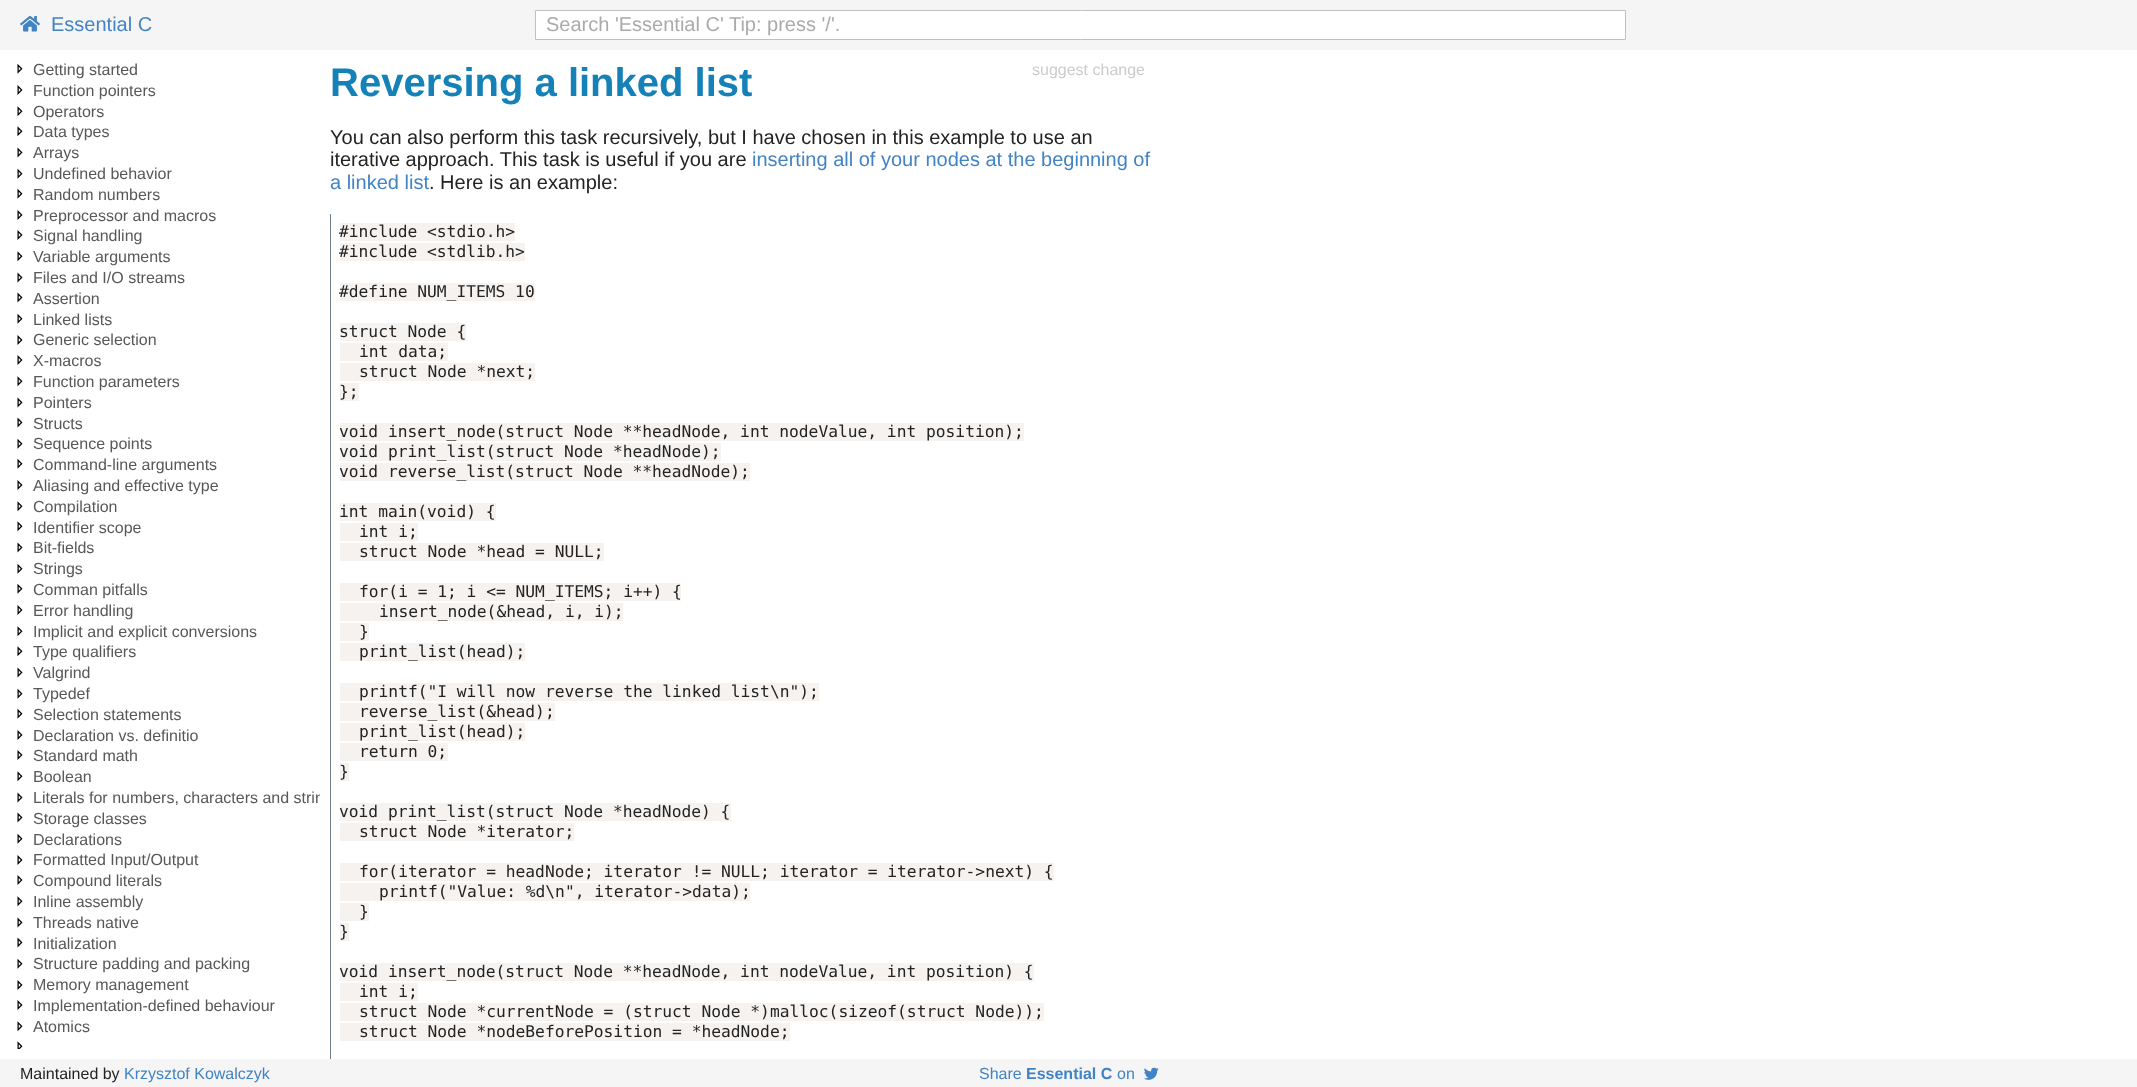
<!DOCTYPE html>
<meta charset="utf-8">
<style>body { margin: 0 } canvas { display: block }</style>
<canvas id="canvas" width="2137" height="1087"></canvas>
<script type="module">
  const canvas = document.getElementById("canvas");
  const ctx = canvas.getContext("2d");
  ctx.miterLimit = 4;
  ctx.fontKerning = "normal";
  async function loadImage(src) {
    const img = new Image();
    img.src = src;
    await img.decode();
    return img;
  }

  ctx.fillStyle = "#ffffff";
  ctx.fillRect(0, 0, 2137, 1087);
  ctx.fillStyle = "#f5f5f5";
  ctx.fillRect(0, 0, 2137, 50);
  ctx.drawImage(await loadImage("img1.png"), 20, 16, 20, 16);
  ctx.font = "20px Liberation Sans";
  ctx.fillStyle = "#4183c4";
  ctx.fillText("Essential C", 51, 31);
  ctx.fillStyle = "#ffffff";
  ctx.beginPath();
  ctx.rect(535.5, 10.5, 1090, 29);
  ctx.fill();
  ctx.strokeStyle = "#c0c0c0";
  ctx.stroke();
  ctx.fillStyle = "#aaaaaa";
  ctx.fillText("Search 'Essential C' Tip: press '/'.", 546, 31);
  ctx.drawImage(await loadImage("img2.png"), 17, 63, 6, 11);
  ctx.font = "16px Liberation Sans";
  ctx.fillStyle = "#585858";
  ctx.fillText("Getting started", 33, 75);
  ctx.drawImage(await loadImage("img3.png"), 17, 85, 6, 10);
  ctx.fillText("Function pointers", 33, 96);
  ctx.drawImage(await loadImage("img4.png"), 17, 106, 6, 11);
  ctx.fillText("Operators", 33, 117);
  ctx.drawImage(await loadImage("img4.png"), 17, 126, 6, 11);
  ctx.fillText("Data types", 33, 137);
  ctx.drawImage(await loadImage("img5.png"), 17, 147, 6, 11);
  ctx.fillText("Arrays", 33, 158);
  ctx.drawImage(await loadImage("img2.png"), 17, 168, 6, 11);
  ctx.fillText("Undefined behavior", 33, 179);
  ctx.drawImage(await loadImage("img2.png"), 17, 188, 6, 11);
  ctx.fillText("Random numbers", 33, 200);
  ctx.drawImage(await loadImage("img3.png"), 17, 210, 6, 10);
  ctx.fillText("Preprocessor and macros", 33, 221);
  ctx.drawImage(await loadImage("img3.png"), 17, 230, 6, 10);
  ctx.fillText("Signal handling", 33, 241);
  ctx.drawImage(await loadImage("img4.png"), 17, 251, 6, 11);
  ctx.fillText("Variable arguments", 33, 262);
  ctx.drawImage(await loadImage("img5.png"), 17, 272, 6, 11);
  ctx.fillText("Files and I/O streams", 33, 283);
  ctx.drawImage(await loadImage("img5.png"), 17, 292, 6, 11);
  ctx.fillText("Assertion", 33, 304);
  ctx.drawImage(await loadImage("img2.png"), 17, 313, 6, 11);
  ctx.fillText("Linked lists", 33, 325);
  ctx.drawImage(await loadImage("img3.png"), 17, 335, 6, 10);
  ctx.fillText("Generic selection", 33, 345);
  ctx.drawImage(await loadImage("img3.png"), 17, 355, 6, 10);
  ctx.fillText("X-macros", 33, 366);
  ctx.drawImage(await loadImage("img4.png"), 17, 376, 6, 11);
  ctx.fillText("Function parameters", 33, 387);
  ctx.drawImage(await loadImage("img5.png"), 17, 397, 6, 11);
  ctx.fillText("Pointers", 33, 408);
  ctx.drawImage(await loadImage("img5.png"), 17, 417, 6, 11);
  ctx.fillText("Structs", 33, 429);
  ctx.drawImage(await loadImage("img2.png"), 17, 438, 6, 11);
  ctx.fillText("Sequence points", 33, 449);
  ctx.drawImage(await loadImage("img2.png"), 17, 458, 6, 11);
  ctx.fillText("Command-line arguments", 33, 470);
  ctx.drawImage(await loadImage("img3.png"), 17, 480, 6, 10);
  ctx.fillText("Aliasing and effective type", 33, 491);
  ctx.drawImage(await loadImage("img4.png"), 17, 501, 6, 11);
  ctx.fillText("Compilation", 33, 512);
  ctx.drawImage(await loadImage("img4.png"), 17, 521, 6, 11);
  ctx.fillText("Identifier scope", 33, 533);
  ctx.drawImage(await loadImage("img5.png"), 17, 542, 6, 11);
  ctx.fillText("Bit-fields", 33, 553);
  ctx.drawImage(await loadImage("img2.png"), 17, 563, 6, 11);
  ctx.fillText("Strings", 33, 574);
  ctx.drawImage(await loadImage("img2.png"), 17, 583, 6, 11);
  ctx.fillText("Comman pitfalls", 33, 595);
  ctx.drawImage(await loadImage("img3.png"), 17, 605, 6, 10);
  ctx.fillText("Error handling", 33, 616);
  ctx.drawImage(await loadImage("img4.png"), 17, 626, 6, 11);
  ctx.fillText("Implicit and explicit conversions", 33, 637);
  ctx.drawImage(await loadImage("img4.png"), 17, 646, 6, 11);
  ctx.fillText("Type qualifiers", 33, 657);
  ctx.drawImage(await loadImage("img5.png"), 17, 667, 6, 11);
  ctx.fillText("Valgrind", 33, 678);
  ctx.drawImage(await loadImage("img2.png"), 17, 688, 6, 11);
  ctx.fillText("Typedef", 33, 699);
  ctx.drawImage(await loadImage("img2.png"), 17, 708, 6, 11);
  ctx.fillText("Selection statements", 33, 720);
  ctx.drawImage(await loadImage("img3.png"), 17, 730, 6, 10);
  ctx.fillText("Declaration vs. definitio", 33, 741);
  ctx.drawImage(await loadImage("img3.png"), 17, 750, 6, 10);
  ctx.fillText("Standard math", 33, 761);
  ctx.drawImage(await loadImage("img4.png"), 17, 771, 6, 11);
  ctx.fillText("Boolean", 33, 782);
  ctx.drawImage(await loadImage("img5.png"), 17, 792, 6, 11);
  ctx.save();
  ctx.beginPath();
  ctx.rect(0, 60, 320, 989);
  ctx.clip();
  ctx.fillText("Literals for numbers, characters and strin", 33, 803);
  ctx.restore();
  ctx.drawImage(await loadImage("img5.png"), 17, 812, 6, 11);
  ctx.fillText("Storage classes", 33, 824);
  ctx.drawImage(await loadImage("img2.png"), 17, 833, 6, 11);
  ctx.fillText("Declarations", 33, 845);
  ctx.drawImage(await loadImage("img3.png"), 17, 855, 6, 10);
  ctx.fillText("Formatted Input/Output", 33, 865);
  ctx.drawImage(await loadImage("img3.png"), 17, 875, 6, 10);
  ctx.fillText("Compound literals", 33, 886);
  ctx.drawImage(await loadImage("img4.png"), 17, 896, 6, 11);
  ctx.fillText("Inline assembly", 33, 907);
  ctx.drawImage(await loadImage("img5.png"), 17, 917, 6, 11);
  ctx.fillText("Threads native", 33, 928);
  ctx.drawImage(await loadImage("img5.png"), 17, 937, 6, 11);
  ctx.fillText("Initialization", 33, 949);
  ctx.drawImage(await loadImage("img2.png"), 17, 958, 6, 11);
  ctx.fillText("Structure padding and packing", 33, 969);
  ctx.drawImage(await loadImage("img3.png"), 17, 980, 6, 10);
  ctx.fillText("Memory management", 33, 990);
  ctx.drawImage(await loadImage("img3.png"), 17, 1000, 6, 10);
  ctx.fillText("Implementation-defined behaviour", 33, 1011);
  ctx.drawImage(await loadImage("img4.png"), 17, 1021, 6, 11);
  ctx.fillText("Atomics", 33, 1032);
  ctx.drawImage(await loadImage("img6.png"), 17, 1041, 6, 8);
  ctx.font = "bold 40px Liberation Sans";
  ctx.fillStyle = "#1481b8";
  ctx.fillText("Reversing a linked list", 330, 96);
  ctx.font = "16px Liberation Sans";
  ctx.fillStyle = "#cccccc";
  ctx.fillText("suggest change", 1032, 75);
  ctx.font = "20px Liberation Sans";
  ctx.fillStyle = "#232323";
  ctx.fillText("You can also perform this task recursively, but I have chosen in this example to use an", 330, 144);
  ctx.fillText("iterative approach. This task is useful if you are", 330, 166);
  ctx.fillStyle = "#4183c4";
  ctx.fillText("inserting all of your nodes at the beginning of", 752, 166);
  ctx.fillText("a linked list", 330, 189);
  ctx.fillStyle = "#232323";
  ctx.fillText(". Here is an example:", 429, 189);
  ctx.fillStyle = "#708090";
  ctx.fillRect(330, 214, 1, 845);
  ctx.fillStyle = "#f5f2f0";
  ctx.fillRect(340, 223, 175, 18);
  ctx.font = "16.25px DejaVu Sans Mono";
  ctx.fillStyle = "#232323";
  ctx.fillText("#include <stdio.h>", 339, 237);
  ctx.fillStyle = "#f5f2f0";
  ctx.fillRect(340, 243, 185, 18);
  ctx.fillStyle = "#232323";
  ctx.fillText("#include <stdlib.h>", 339, 257);
  ctx.fillStyle = "#f5f2f0";
  ctx.fillRect(340, 283, 195, 18);
  ctx.fillStyle = "#232323";
  ctx.fillText("#define NUM_ITEMS 10", 339, 297);
  ctx.fillStyle = "#f5f2f0";
  ctx.fillRect(340, 323, 126, 18);
  ctx.fillStyle = "#232323";
  ctx.fillText("struct Node {", 339, 337);
  ctx.fillStyle = "#f5f2f0";
  ctx.fillRect(340, 343, 108, 18);
  ctx.fillStyle = "#232323";
  ctx.fillText("int data;", 359, 357);
  ctx.fillStyle = "#f5f2f0";
  ctx.fillRect(340, 363, 195, 18);
  ctx.fillStyle = "#232323";
  ctx.fillText("struct Node *next;", 359, 377);
  ctx.fillStyle = "#f5f2f0";
  ctx.fillRect(340, 383, 19, 18);
  ctx.fillStyle = "#232323";
  ctx.fillText("};", 339, 397);
  ctx.fillStyle = "#f5f2f0";
  ctx.fillRect(340, 423, 684, 18);
  ctx.fillStyle = "#232323";
  ctx.fillText("void insert_node(struct Node **headNode, int nodeValue, int position);", 339, 437);
  ctx.fillStyle = "#f5f2f0";
  ctx.fillRect(340, 443, 381, 18);
  ctx.fillStyle = "#232323";
  ctx.fillText("void print_list(struct Node *headNode);", 339, 457);
  ctx.fillStyle = "#f5f2f0";
  ctx.fillRect(340, 463, 410, 18);
  ctx.fillStyle = "#232323";
  ctx.fillText("void reverse_list(struct Node **headNode);", 339, 477);
  ctx.fillStyle = "#f5f2f0";
  ctx.fillRect(340, 503, 156, 18);
  ctx.fillStyle = "#232323";
  ctx.fillText("int main(void) {", 339, 517);
  ctx.fillStyle = "#f5f2f0";
  ctx.fillRect(340, 523, 78, 18);
  ctx.fillStyle = "#232323";
  ctx.fillText("int i;", 359, 537);
  ctx.fillStyle = "#f5f2f0";
  ctx.fillRect(340, 543, 264, 18);
  ctx.fillStyle = "#232323";
  ctx.fillText("struct Node *head = NULL;", 359, 557);
  ctx.fillStyle = "#f5f2f0";
  ctx.fillRect(340, 583, 341, 18);
  ctx.fillStyle = "#232323";
  ctx.fillText("for(i = 1; i <= NUM_ITEMS; i++) {", 359, 597);
  ctx.fillStyle = "#f5f2f0";
  ctx.fillRect(340, 603, 283, 18);
  ctx.fillStyle = "#232323";
  ctx.fillText("insert_node(&head, i, i);", 379, 617);
  ctx.fillStyle = "#f5f2f0";
  ctx.fillRect(340, 623, 29, 18);
  ctx.fillStyle = "#232323";
  ctx.fillText("}", 359, 637);
  ctx.fillStyle = "#f5f2f0";
  ctx.fillRect(340, 643, 185, 18);
  ctx.fillStyle = "#232323";
  ctx.fillText("print_list(head);", 359, 657);
  ctx.fillStyle = "#f5f2f0";
  ctx.fillRect(340, 683, 479, 18);
  ctx.fillStyle = "#232323";
  ctx.fillText("printf(\"I will now reverse the linked list\\n\");", 359, 697);
  ctx.fillStyle = "#f5f2f0";
  ctx.fillRect(340, 703, 215, 18);
  ctx.fillStyle = "#232323";
  ctx.fillText("reverse_list(&head);", 359, 717);
  ctx.fillStyle = "#f5f2f0";
  ctx.fillRect(340, 723, 185, 18);
  ctx.fillStyle = "#232323";
  ctx.fillText("print_list(head);", 359, 737);
  ctx.fillStyle = "#f5f2f0";
  ctx.fillRect(340, 743, 108, 18);
  ctx.fillStyle = "#232323";
  ctx.fillText("return 0;", 359, 757);
  ctx.fillStyle = "#f5f2f0";
  ctx.fillRect(340, 763, 9, 18);
  ctx.fillStyle = "#232323";
  ctx.fillText("}", 339, 777);
  ctx.fillStyle = "#f5f2f0";
  ctx.fillRect(340, 803, 391, 18);
  ctx.fillStyle = "#232323";
  ctx.fillText("void print_list(struct Node *headNode) {", 339, 817);
  ctx.fillStyle = "#f5f2f0";
  ctx.fillRect(340, 823, 234, 18);
  ctx.fillStyle = "#232323";
  ctx.fillText("struct Node *iterator;", 359, 837);
  ctx.fillStyle = "#f5f2f0";
  ctx.fillRect(340, 863, 714, 18);
  ctx.fillStyle = "#232323";
  ctx.fillText("for(iterator = headNode; iterator != NULL; iterator = iterator->next) {", 359, 877);
  ctx.fillStyle = "#f5f2f0";
  ctx.fillRect(340, 883, 410, 18);
  ctx.fillStyle = "#232323";
  ctx.fillText("printf(\"Value: %d\\n\", iterator->data);", 379, 897);
  ctx.fillStyle = "#f5f2f0";
  ctx.fillRect(340, 903, 29, 18);
  ctx.fillStyle = "#232323";
  ctx.fillText("}", 359, 917);
  ctx.fillStyle = "#f5f2f0";
  ctx.fillRect(340, 923, 9, 18);
  ctx.fillStyle = "#232323";
  ctx.fillText("}", 339, 937);
  ctx.fillStyle = "#f5f2f0";
  ctx.fillRect(340, 963, 694, 18);
  ctx.fillStyle = "#232323";
  ctx.fillText("void insert_node(struct Node **headNode, int nodeValue, int position) {", 339, 977);
  ctx.fillStyle = "#f5f2f0";
  ctx.fillRect(340, 983, 78, 18);
  ctx.fillStyle = "#232323";
  ctx.fillText("int i;", 359, 997);
  ctx.fillStyle = "#f5f2f0";
  ctx.fillRect(340, 1003, 704, 18);
  ctx.fillStyle = "#232323";
  ctx.fillText("struct Node *currentNode = (struct Node *)malloc(sizeof(struct Node));", 359, 1017);
  ctx.fillStyle = "#f5f2f0";
  ctx.fillRect(340, 1023, 450, 18);
  ctx.fillStyle = "#232323";
  ctx.fillText("struct Node *nodeBeforePosition = *headNode;", 359, 1037);
  ctx.fillStyle = "#f5f5f5";
  ctx.fillRect(0, 1059, 2137, 28);
  ctx.font = "16px Liberation Sans";
  ctx.fillStyle = "#232323";
  ctx.fillText("Maintained by", 20, 1079);
  ctx.fillStyle = "#4183c4";
  ctx.fillText("Krzysztof Kowalczyk", 124, 1079);
  ctx.fillText("Share", 979, 1079);
  ctx.font = "bold 16px Liberation Sans";
  ctx.fillText("Essential C", 1026, 1079);
  ctx.font = "16px Liberation Sans";
  ctx.fillText("on", 1117, 1079);
  ctx.drawImage(await loadImage("img7.png"), 1144, 1067, 15, 13);
</script>
